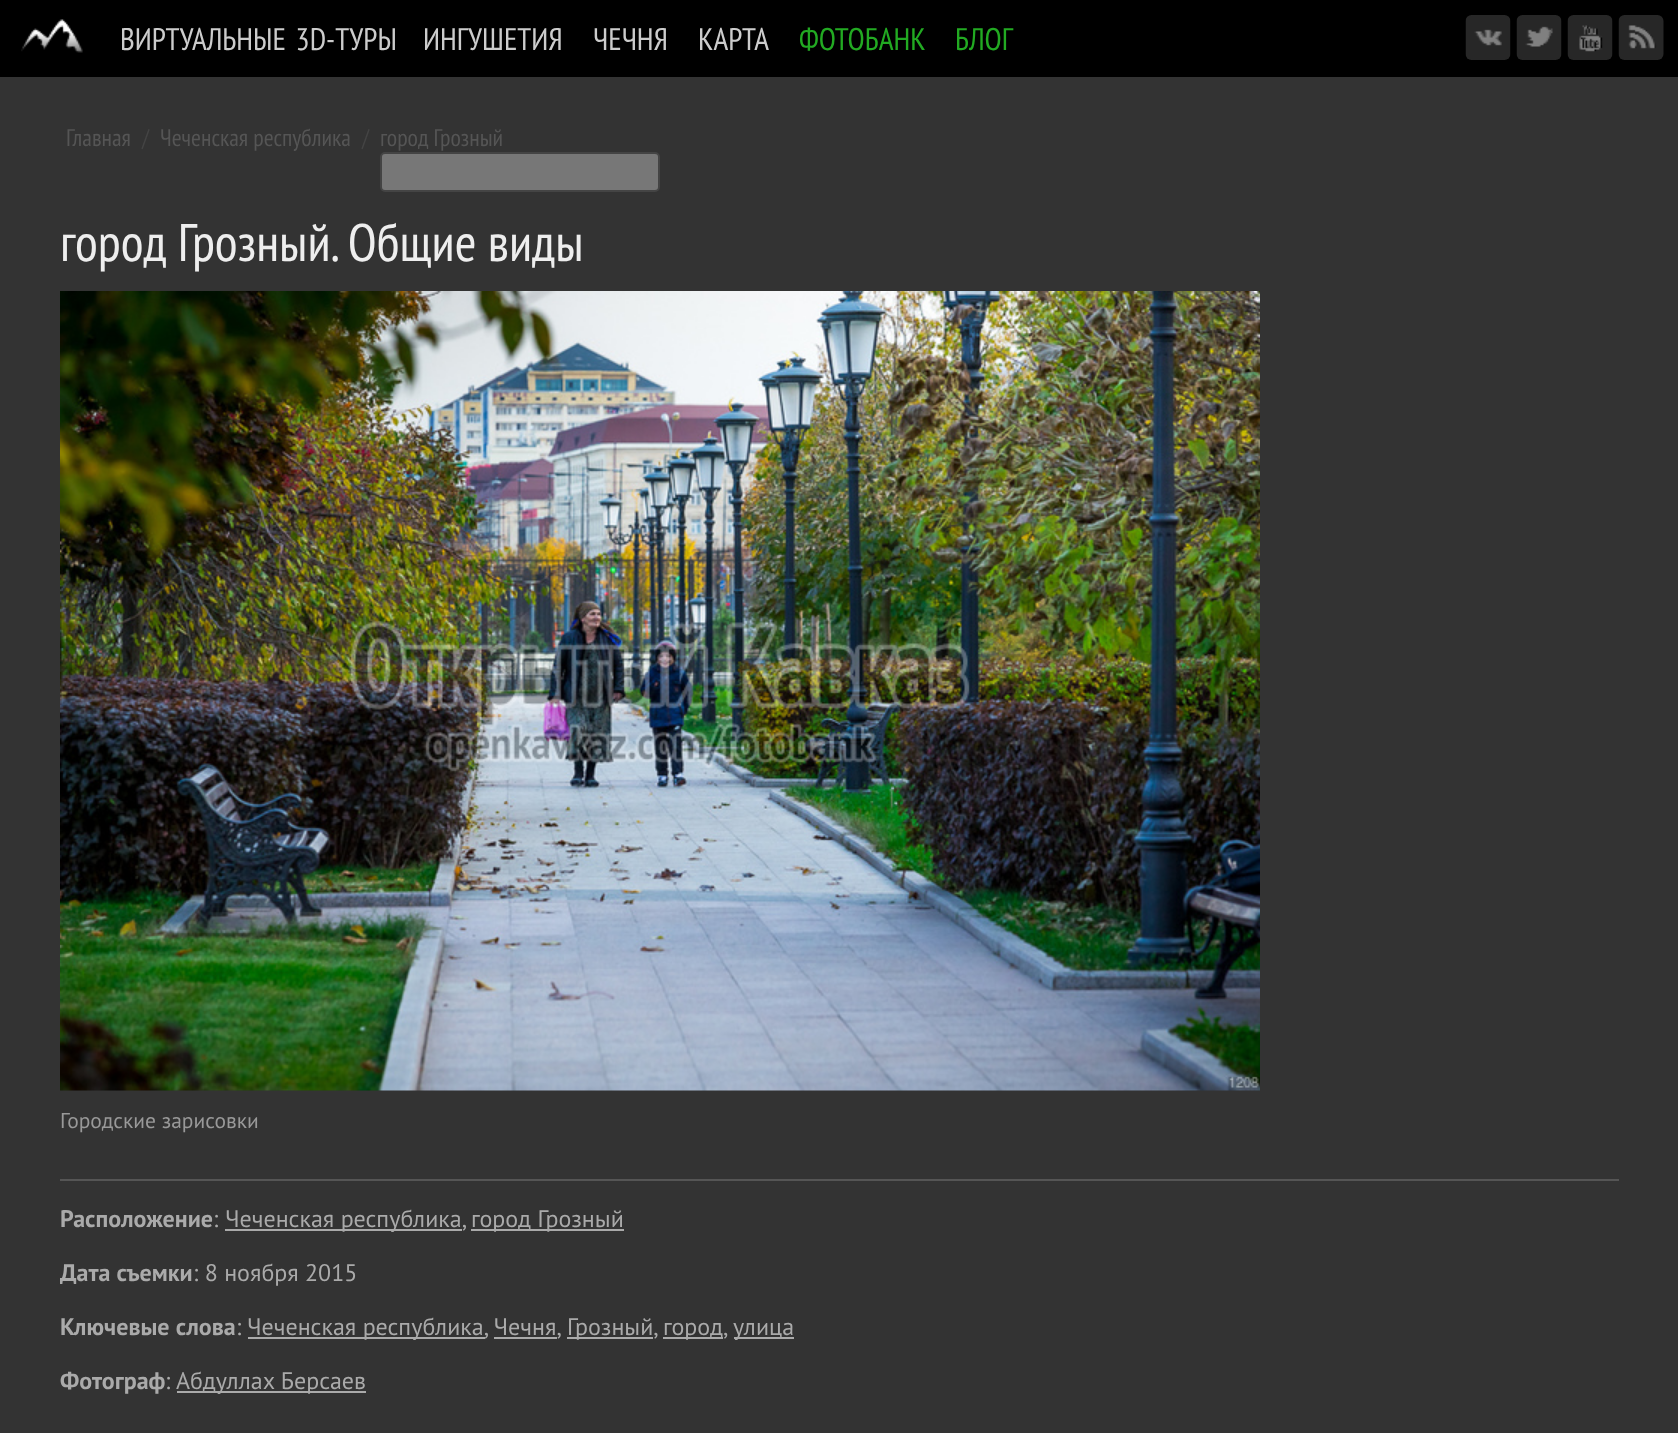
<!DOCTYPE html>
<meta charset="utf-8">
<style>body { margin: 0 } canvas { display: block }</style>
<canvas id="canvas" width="1678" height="1433"></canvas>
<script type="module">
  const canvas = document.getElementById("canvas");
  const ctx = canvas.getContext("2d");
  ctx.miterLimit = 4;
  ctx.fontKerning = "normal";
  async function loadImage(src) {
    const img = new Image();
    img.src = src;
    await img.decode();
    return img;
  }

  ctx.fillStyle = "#000000";
  ctx.fillRect(0, 0, 1678, 1433);
  ctx.drawImage(await loadImage("img1.png"), 21, 19, 62, 34);
  ctx.wordSpacing = "3px";
  ctx.font = "31.25px PT Sans Narrow";
  ctx.fillStyle = "#cccccc";
  ctx.fillText("ВИРТУАЛЬНЫЕ 3D-ТУРЫ", 120, 50);
  ctx.wordSpacing = "0px";
  ctx.fillText("ИНГУШЕТИЯ", 423, 50);
  ctx.fillText("ЧЕЧНЯ", 593, 50);
  ctx.fillText("КАРТА", 698, 50);
  ctx.fillStyle = "#22aa22";
  ctx.fillText("ФОТОБАНК", 799, 50);
  ctx.fillText("БЛОГ", 955, 50);
  ctx.drawImage(await loadImage("img2.png"), 1465, 15, 46, 45);
  ctx.drawImage(await loadImage("img3.png"), 1516, 15, 46, 45);
  ctx.drawImage(await loadImage("img4.png"), 1567, 15, 46, 45);
  ctx.drawImage(await loadImage("img5.png"), 1618, 15, 46, 45);
  ctx.fillStyle = "#333333";
  ctx.fillRect(0, 77, 1678, 1356);
  ctx.font = "24px PT Sans Narrow";
  ctx.fillStyle = "#555555";
  ctx.fillText("Главная", 66, 146);
  ctx.fillStyle = "#444444";
  ctx.fillText("/", 142, 146);
  ctx.fillStyle = "#555555";
  ctx.fillText("Чеченская республика", 160, 146);
  ctx.fillStyle = "#444444";
  ctx.fillText("/", 362, 146);
  ctx.fillStyle = "#555555";
  ctx.fillText("город Грозный", 380, 146);
  ctx.fillStyle = "#777777";
  ctx.beginPath();
  ctx.roundRect(381, 153, 278, 38, 4);
  ctx.fill();
  ctx.strokeStyle = "#444444";
  ctx.lineWidth = 2;
  ctx.stroke();
  ctx.font = "52.75px PT Sans Narrow";
  ctx.fillStyle = "#eeeeee";
  ctx.fillText("город Грозный. Общие виды", 60, 261);
  ctx.drawImage(await loadImage("img6.png"), 60, 291, 1200, 800);
  ctx.font = "21.5px PT Sans";
  ctx.fillStyle = "#999999";
  ctx.fillText("Городские зарисовки", 60, 1128);
  ctx.fillStyle = "#555555";
  ctx.fillRect(60, 1179, 1559, 2);
  ctx.font = "bold 24px PT Sans";
  ctx.fillStyle = "#aaaaaa";
  ctx.fillText("Расположение", 60, 1227);
  ctx.font = "24px PT Sans";
  ctx.fillText(":", 213, 1227);
  ctx.fillRect(225, 1229, 237, 2);
  ctx.fillText("Чеченская республика,", 225, 1227);
  ctx.fillRect(471, 1229, 153, 2);
  ctx.fillText("город Грозный", 471, 1227);
  ctx.font = "bold 24px PT Sans";
  ctx.fillText("Дата съемки", 60, 1281);
  ctx.font = "24px PT Sans";
  ctx.fillText(": 8 ноября 2015", 193, 1281);
  ctx.font = "bold 24px PT Sans";
  ctx.fillText("Ключевые слова", 60, 1335);
  ctx.font = "24px PT Sans";
  ctx.fillText(":", 236, 1335);
  ctx.fillRect(248, 1337, 237, 2);
  ctx.fillText("Чеченская республика, Чечня,", 247, 1335);
  ctx.fillRect(567, 1337, 86, 2);
  ctx.fillText("Грозный,", 567, 1335);
  ctx.fillRect(663, 1337, 60, 2);
  ctx.fillText("город,", 663, 1335);
  ctx.fillRect(734, 1337, 60, 2);
  ctx.fillText("улица", 733, 1335);
  ctx.fillRect(494, 1337, 63, 2);
  ctx.font = "bold 24px PT Sans";
  ctx.fillText("Фотограф", 60, 1389);
  ctx.font = "24px PT Sans";
  ctx.fillText(":", 165, 1389);
  ctx.fillRect(177, 1391, 189, 2);
  ctx.fillText("Абдуллах Берсаев", 176, 1389);
</script>
